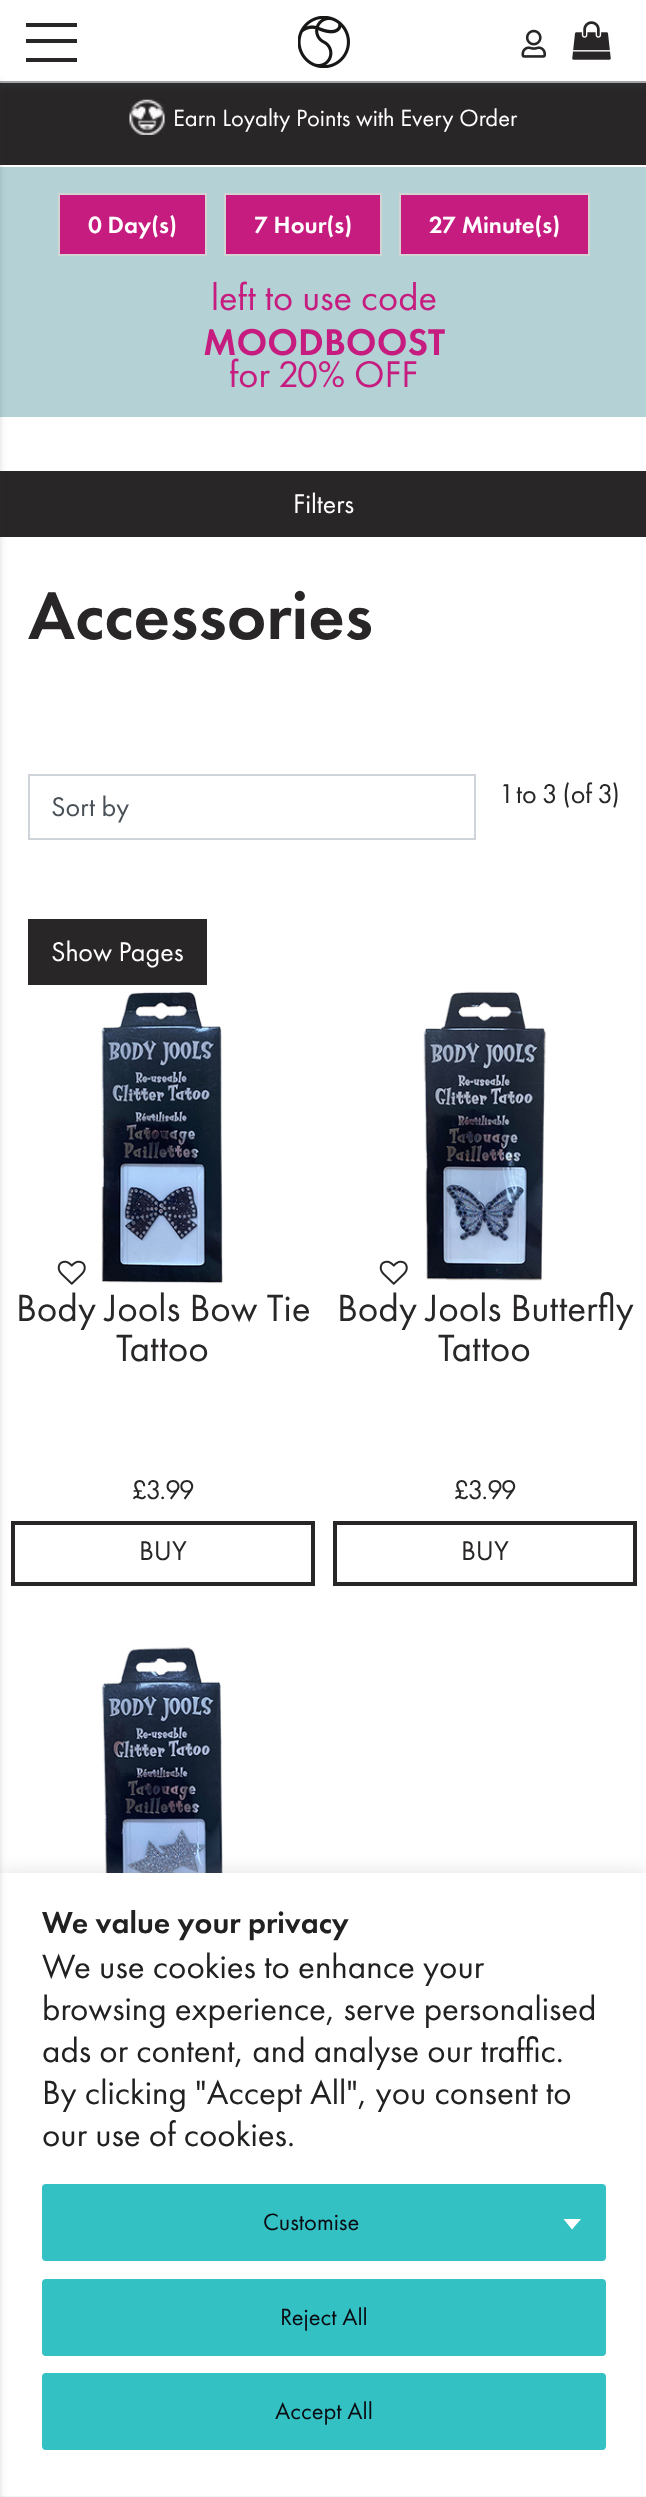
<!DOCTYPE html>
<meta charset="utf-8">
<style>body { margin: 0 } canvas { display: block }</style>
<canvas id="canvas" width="646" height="2497"></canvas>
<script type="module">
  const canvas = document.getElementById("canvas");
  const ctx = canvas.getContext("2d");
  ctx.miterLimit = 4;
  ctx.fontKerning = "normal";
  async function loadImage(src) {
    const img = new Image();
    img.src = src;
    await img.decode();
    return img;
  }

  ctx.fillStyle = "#ffffff";
  ctx.fillRect(0, 0, 646, 2497);
  ctx.fillStyle = "#292627";
  ctx.fillRect(0, 83, 646, 82);
  ctx.drawImage(await loadImage("img4.png"), 129, 99, 36, 36);
  ctx.save();
  ctx.beginPath();
  ctx.rect(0, 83, 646, 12);
  ctx.clip();
  ctx.fillStyle = "rgba(57, 63, 72, 0.3)";
  ctx.filter = "blur(4.5px)";
  ctx.beginPath();
  ctx.rect(0, 5, 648, 83);
  ctx.fill();
  ctx.filter = "none";
  ctx.restore();
  ctx.fillStyle = "#a5a5a5";
  ctx.fillRect(0, 81, 646, 2);
  ctx.fillStyle = "#b4d1d5";
  ctx.fillRect(0, 167, 646, 250);
  ctx.fillStyle = "#292627";
  ctx.fillRect(0, 471, 646, 66);
  ctx.strokeStyle = "#292627";
  ctx.lineWidth = 4;
  ctx.strokeRect(13, 1523, 300, 61);
  ctx.drawImage(await loadImage("img8.png"), 101, 1647, 123, 226);
  ctx.save();
  ctx.beginPath();
  ctx.rect(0, 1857, 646, 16);
  ctx.clip();
  ctx.fillStyle = "rgba(172, 171, 171, 0.3)";
  ctx.filter = "blur(9px)";
  ctx.beginPath();
  ctx.rect(0, 1871, 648, 625);
  ctx.fill();
  ctx.filter = "none";
  ctx.restore();
  ctx.fillStyle = "#f4f4f4";
  ctx.fillRect(0, 2496, 646, 1);
  ctx.fillStyle = "rgba(57, 63, 72, 0.3)";
  ctx.filter = "blur(4.5px)";
  ctx.beginPath();
  ctx.rect(-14, 81, 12, 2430);
  ctx.fill();
  ctx.filter = "none";
  ctx.fillStyle = "#292627";
  ctx.fillRect(26, 23, 51, 4);
  ctx.fillRect(26, 39, 51, 4);
  ctx.fillRect(26, 58, 51, 4);
  ctx.drawImage(await loadImage("img1.png"), 298, 16, 52, 52);
  ctx.drawImage(await loadImage("img2.png"), 521, 29, 25, 29);
  ctx.drawImage(await loadImage("img3.png"), 572, 21, 39, 39);
  ctx.font = "24.5px Futura PT";
  ctx.fillStyle = "#ffffff";
  ctx.fillText("Earn Loyalty Points with Every Order", 173, 126);
  ctx.fillStyle = "#c61c7f";
  ctx.beginPath();
  ctx.rect(59, 194, 147, 61);
  ctx.fill();
  ctx.strokeStyle = "#d3d3d3";
  ctx.lineWidth = 2;
  ctx.stroke();
  ctx.font = "500 24.5px Futura PT";
  ctx.fillStyle = "#ffffff";
  ctx.fillText("0 Day(s)", 88, 233);
  ctx.fillStyle = "#c61c7f";
  ctx.beginPath();
  ctx.rect(225, 194, 156, 61);
  ctx.fill();
  ctx.stroke();
  ctx.fillStyle = "#ffffff";
  ctx.fillText("7 Hour(s)", 254, 233);
  ctx.fillStyle = "#c61c7f";
  ctx.beginPath();
  ctx.rect(400, 194, 189, 61);
  ctx.fill();
  ctx.stroke();
  ctx.fillStyle = "#ffffff";
  ctx.fillText("27 Minute(s)", 429, 233);
  ctx.font = "38.5px Futura PT";
  ctx.fillStyle = "#c61c7f";
  ctx.fillText("left to use code", 211, 310);
  ctx.font = "500 38.5px Futura PT";
  ctx.fillText("MOODBOOST", 203, 355);
  ctx.font = "38.5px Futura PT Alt";
  ctx.fillText("for 20% OFF", 229, 387);
  ctx.font = "28px Futura PT";
  ctx.fillStyle = "#ffffff";
  ctx.fillText("Filters", 293, 513);
  ctx.font = "500 70px Futura PT";
  ctx.fillStyle = "#292627";
  ctx.fillText("Accessories", 28, 639);
  ctx.strokeStyle = "#ced4da";
  ctx.strokeRect(29, 775, 446, 64);
  ctx.font = "28px Futura PT";
  ctx.fillStyle = "#495057";
  ctx.fillText("Sort by", 51, 816);
  ctx.font = "28px Futura PT Alt";
  ctx.fillStyle = "#292627";
  ctx.fillText("1 to 3 (of 3)", 503, 803);
  ctx.fillRect(28, 919, 179, 66);
  ctx.font = "28px Futura PT";
  ctx.fillStyle = "#ffffff";
  ctx.fillText("Show Pages", 51, 961);
  ctx.drawImage(await loadImage("img5.png"), 57, 1260, 29, 25);
  ctx.drawImage(await loadImage("img6.png"), 101, 991, 122, 293);
  ctx.font = "39.25px Futura PT";
  ctx.fillStyle = "#292627";
  ctx.fillText("Body Jools Bow Tie", 16, 1321);
  ctx.fillText("Tattoo", 116, 1361);
  ctx.font = "28px Futura PT Alt";
  ctx.fillText("£3.99", 132, 1499);
  ctx.font = "28px Futura PT";
  ctx.fillText("BUY", 139, 1560);
  ctx.drawImage(await loadImage("img5.png"), 379, 1260, 29, 25);
  ctx.drawImage(await loadImage("img7.png"), 423, 991, 123, 290);
  ctx.font = "39.25px Futura PT";
  ctx.fillText("Body Jools Butterfly", 337, 1321);
  ctx.fillText("Tattoo", 438, 1361);
  ctx.font = "28px Futura PT Alt";
  ctx.fillText("£3.99", 454, 1499);
  ctx.strokeStyle = "#292627";
  ctx.lineWidth = 4;
  ctx.strokeRect(335, 1523, 300, 61);
  ctx.font = "28px Futura PT";
  ctx.fillText("BUY", 461, 1560);
  ctx.font = "500 31.5px Futura PT";
  ctx.fillStyle = "#212121";
  ctx.fillText("We value your privacy", 42, 1933);
  ctx.font = "35px Futura PT";
  ctx.fillText("We use cookies to enhance your", 42, 1978);
  ctx.fillText("browsing experience, serve personalised", 42, 2020);
  ctx.fillText("ads or content, and analyse our traffic.", 42, 2062);
  ctx.fillText("By clicking \"Accept All\", you consent to", 42, 2104);
  ctx.fillText("our use of cookies.", 42, 2146);
  ctx.fillStyle = "#33c1c4";
  ctx.beginPath();
  ctx.roundRect(44, 2186, 560, 73, 2);
  ctx.fill();
  ctx.strokeStyle = "#33c1c4";
  ctx.stroke();
  ctx.font = "24.5px Futura PT";
  ctx.fillStyle = "#0a0b11";
  ctx.fillText("Customise", 263, 2230);
  ctx.fillStyle = "#ffffff";
  ctx.beginPath();
  ctx.moveTo(563.5, 2219);
  ctx.lineTo(581, 2219);
  ctx.lineTo(572, 2229.5);
  ctx.closePath();
  ctx.fill();
  ctx.fillStyle = "#33c1c4";
  ctx.beginPath();
  ctx.roundRect(44, 2281, 560, 73, 2);
  ctx.fill();
  ctx.stroke();
  ctx.fillStyle = "#0a0b11";
  ctx.fillText("Reject All", 280, 2325);
  ctx.fillStyle = "#33c1c4";
  ctx.beginPath();
  ctx.roundRect(44, 2375, 560, 73, 2);
  ctx.fill();
  ctx.stroke();
  ctx.fillStyle = "#0a0b11";
  ctx.fillText("Accept All", 275, 2419);
</script>
